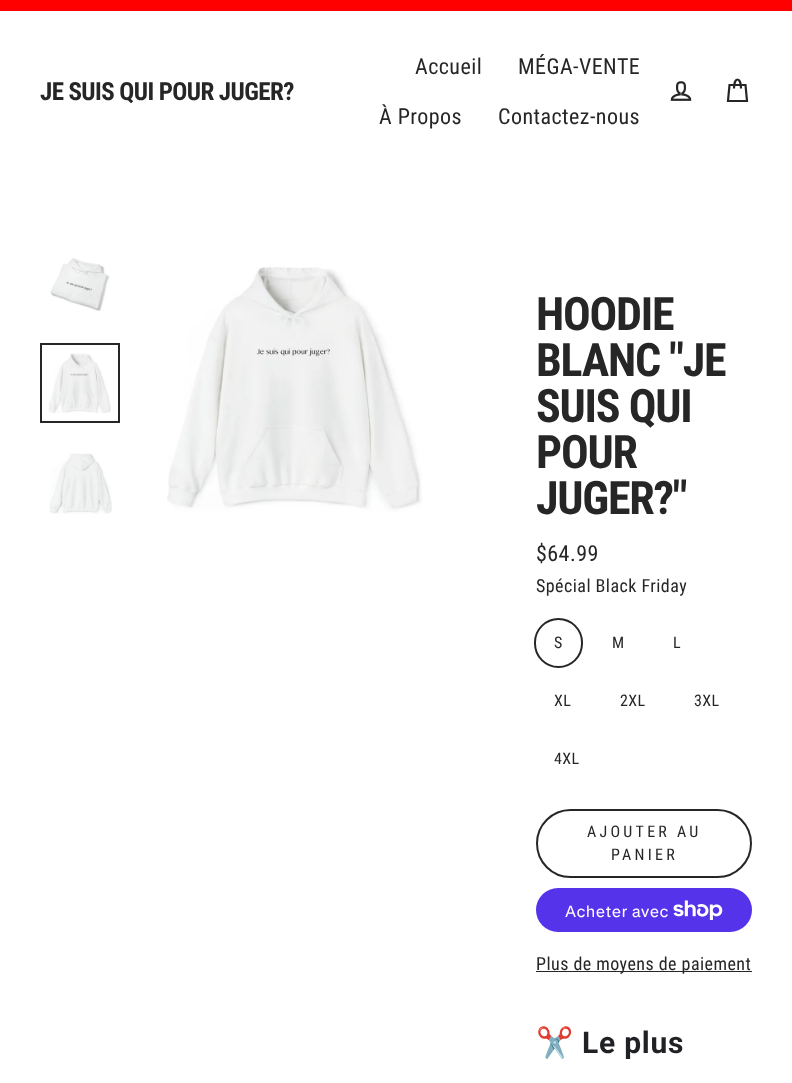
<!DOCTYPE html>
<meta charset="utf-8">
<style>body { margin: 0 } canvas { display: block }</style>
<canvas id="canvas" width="792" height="1083"></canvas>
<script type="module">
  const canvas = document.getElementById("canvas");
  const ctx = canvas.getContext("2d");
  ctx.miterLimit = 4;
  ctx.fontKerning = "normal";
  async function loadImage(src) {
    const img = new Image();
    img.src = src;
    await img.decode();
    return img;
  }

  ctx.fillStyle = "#ffffff";
  ctx.fillRect(0, 0, 792, 1083);
  ctx.fillStyle = "#ff0000";
  ctx.fillRect(0, 0, 792, 11);
  ctx.letterSpacing = "-0.6px";
  ctx.font = "bold 25px Roboto Condensed";
  ctx.fillStyle = "#262626";
  ctx.fillText("JE SUIS QUI POUR JUGER?", 40, 100);
  ctx.letterSpacing = "0.45px";
  ctx.font = "22px Roboto Condensed";
  ctx.fillText("Accueil", 415, 74);
  ctx.fillText("MÉGA-VENTE", 518, 74);
  ctx.fillText("À Propos", 379, 124);
  ctx.fillText("Contactez-nous", 498, 124);
  ctx.drawImage(await loadImage("img1.png"), 670, 81, 22, 20);
  ctx.beginPath();
  ctx.moveTo(734, 88.5);
  ctx.bezierCurveTo(734, 76.5, 741, 76.5, 741, 88.5);
  ctx.moveTo(729.5, 85);
  ctx.lineTo(745.5, 85);
  ctx.lineTo(747, 101);
  ctx.lineTo(728, 101);
  ctx.closePath();
  ctx.strokeStyle = "#262626";
  ctx.lineWidth = 2.2;
  ctx.stroke();
  ctx.drawImage(await loadImage("img2.png"), 50, 258, 60, 53);
  ctx.lineWidth = 2;
  ctx.strokeRect(41, 344, 78, 78);
  ctx.drawImage(await loadImage("img3.png"), 48, 353, 63, 61);
  ctx.drawImage(await loadImage("img4.png"), 49, 453, 63, 61);
  ctx.drawImage(await loadImage("img5.png"), 167, 267, 256, 245);
  ctx.letterSpacing = "-1.25px";
  ctx.font = "bold 46px Roboto Condensed";
  ctx.fillText("HOODIE", 536, 330);
  ctx.fillText("BLANC \"JE", 536, 376);
  ctx.fillText("SUIS QUI", 536, 422);
  ctx.fillText("POUR", 536, 468);
  ctx.fillText("JUGER?\"", 536, 514);
  ctx.letterSpacing = "0.45px";
  ctx.font = "22px Roboto Condensed";
  ctx.fillText("$64.99", 536, 561);
  ctx.font = "18px Roboto Condensed";
  ctx.fillText("Spécial Black Friday", 536, 592);
  ctx.beginPath();
  ctx.roundRect(535, 619, 47, 48, 23.5);
  ctx.stroke();
  ctx.font = "16px Roboto Condensed";
  ctx.fillText("S", 554, 648);
  ctx.fillText("M", 612, 648);
  ctx.fillText("L", 673, 648);
  ctx.fillText("XL", 554, 706);
  ctx.fillText("2XL", 620, 706);
  ctx.fillText("3XL", 694, 706);
  ctx.fillText("4XL", 554, 764);
  ctx.beginPath();
  ctx.roundRect(537, 810, 214, 67, 33.5);
  ctx.stroke();
  ctx.letterSpacing = "3.25px";
  ctx.fillText("AJOUTER AU", 587, 837);
  ctx.fillText("PANIER", 611, 860);
  ctx.fillStyle = "#5433eb";
  ctx.beginPath();
  ctx.roundRect(536, 888, 216, 44, 22);
  ctx.fill();
  ctx.letterSpacing = "0.45px";
  ctx.font = "16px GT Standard";
  ctx.fillStyle = "#ffffff";
  ctx.fillText("Acheter avec", 565, 917);
  ctx.drawImage(await loadImage("img6.png"), 673, 900, 50, 20);
  ctx.fillStyle = "#262626";
  ctx.fillRect(536, 971, 216, 1);
  ctx.font = "18px Roboto Condensed";
  ctx.fillText("Plus de moyens de paiement", 536, 970);
  ctx.letterSpacing = "0.75px";
  ctx.font = "30px Noto Color Emoji";
  ctx.fillStyle = "#1f2124";
  ctx.fillText("✂️", 536, 1053);
  ctx.font = "bold 30px Roboto";
  ctx.fillText("Le plus", 582, 1053);
</script>
